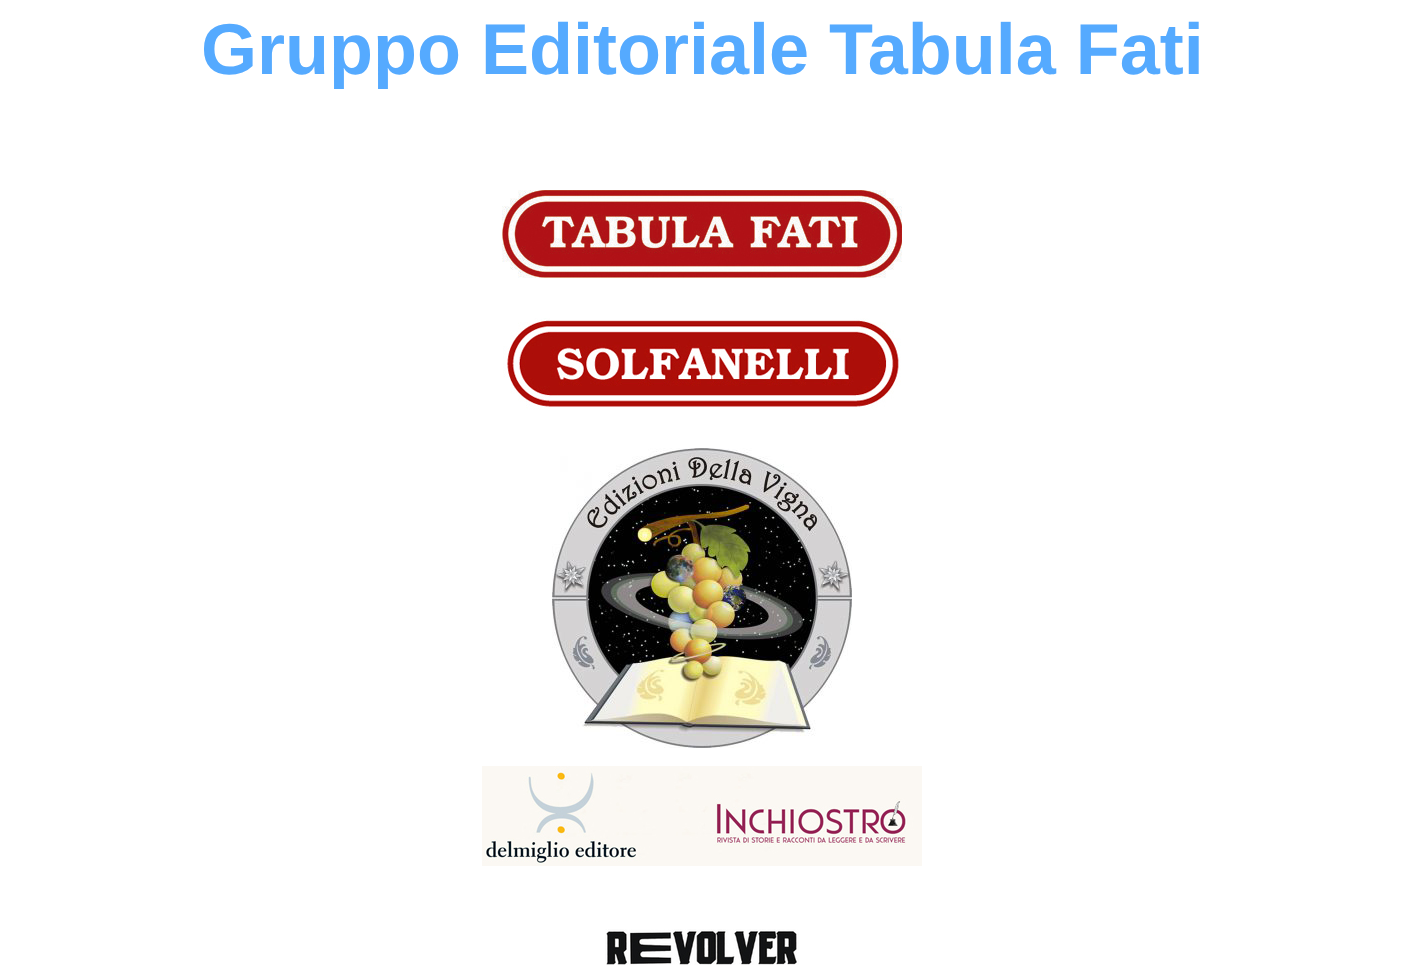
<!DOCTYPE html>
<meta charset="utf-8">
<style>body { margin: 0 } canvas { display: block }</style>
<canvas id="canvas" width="1404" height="965"></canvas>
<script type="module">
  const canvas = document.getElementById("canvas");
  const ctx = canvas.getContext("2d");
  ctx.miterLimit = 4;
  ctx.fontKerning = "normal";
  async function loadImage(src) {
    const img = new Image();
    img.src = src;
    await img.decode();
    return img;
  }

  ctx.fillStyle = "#ffffff";
  ctx.fillRect(0, 0, 1404, 965);
  ctx.font = "bold 72px Liberation Sans";
  ctx.fillStyle = "#55aaff";
  ctx.fillText("Gruppo Editoriale Tabula Fati", 201, 74);
  ctx.drawImage(await loadImage("img1.png"), 502, 190, 400, 88);
  ctx.drawImage(await loadImage("img2.png"), 503, 318, 398, 92);
  ctx.drawImage(await loadImage("img3.png"), 552, 448, 300, 300);
  ctx.drawImage(await loadImage("img4.png"), 482, 766, 440, 100);
  ctx.drawImage(await loadImage("img5.png"), 605, 929, 194, 36);
</script>
